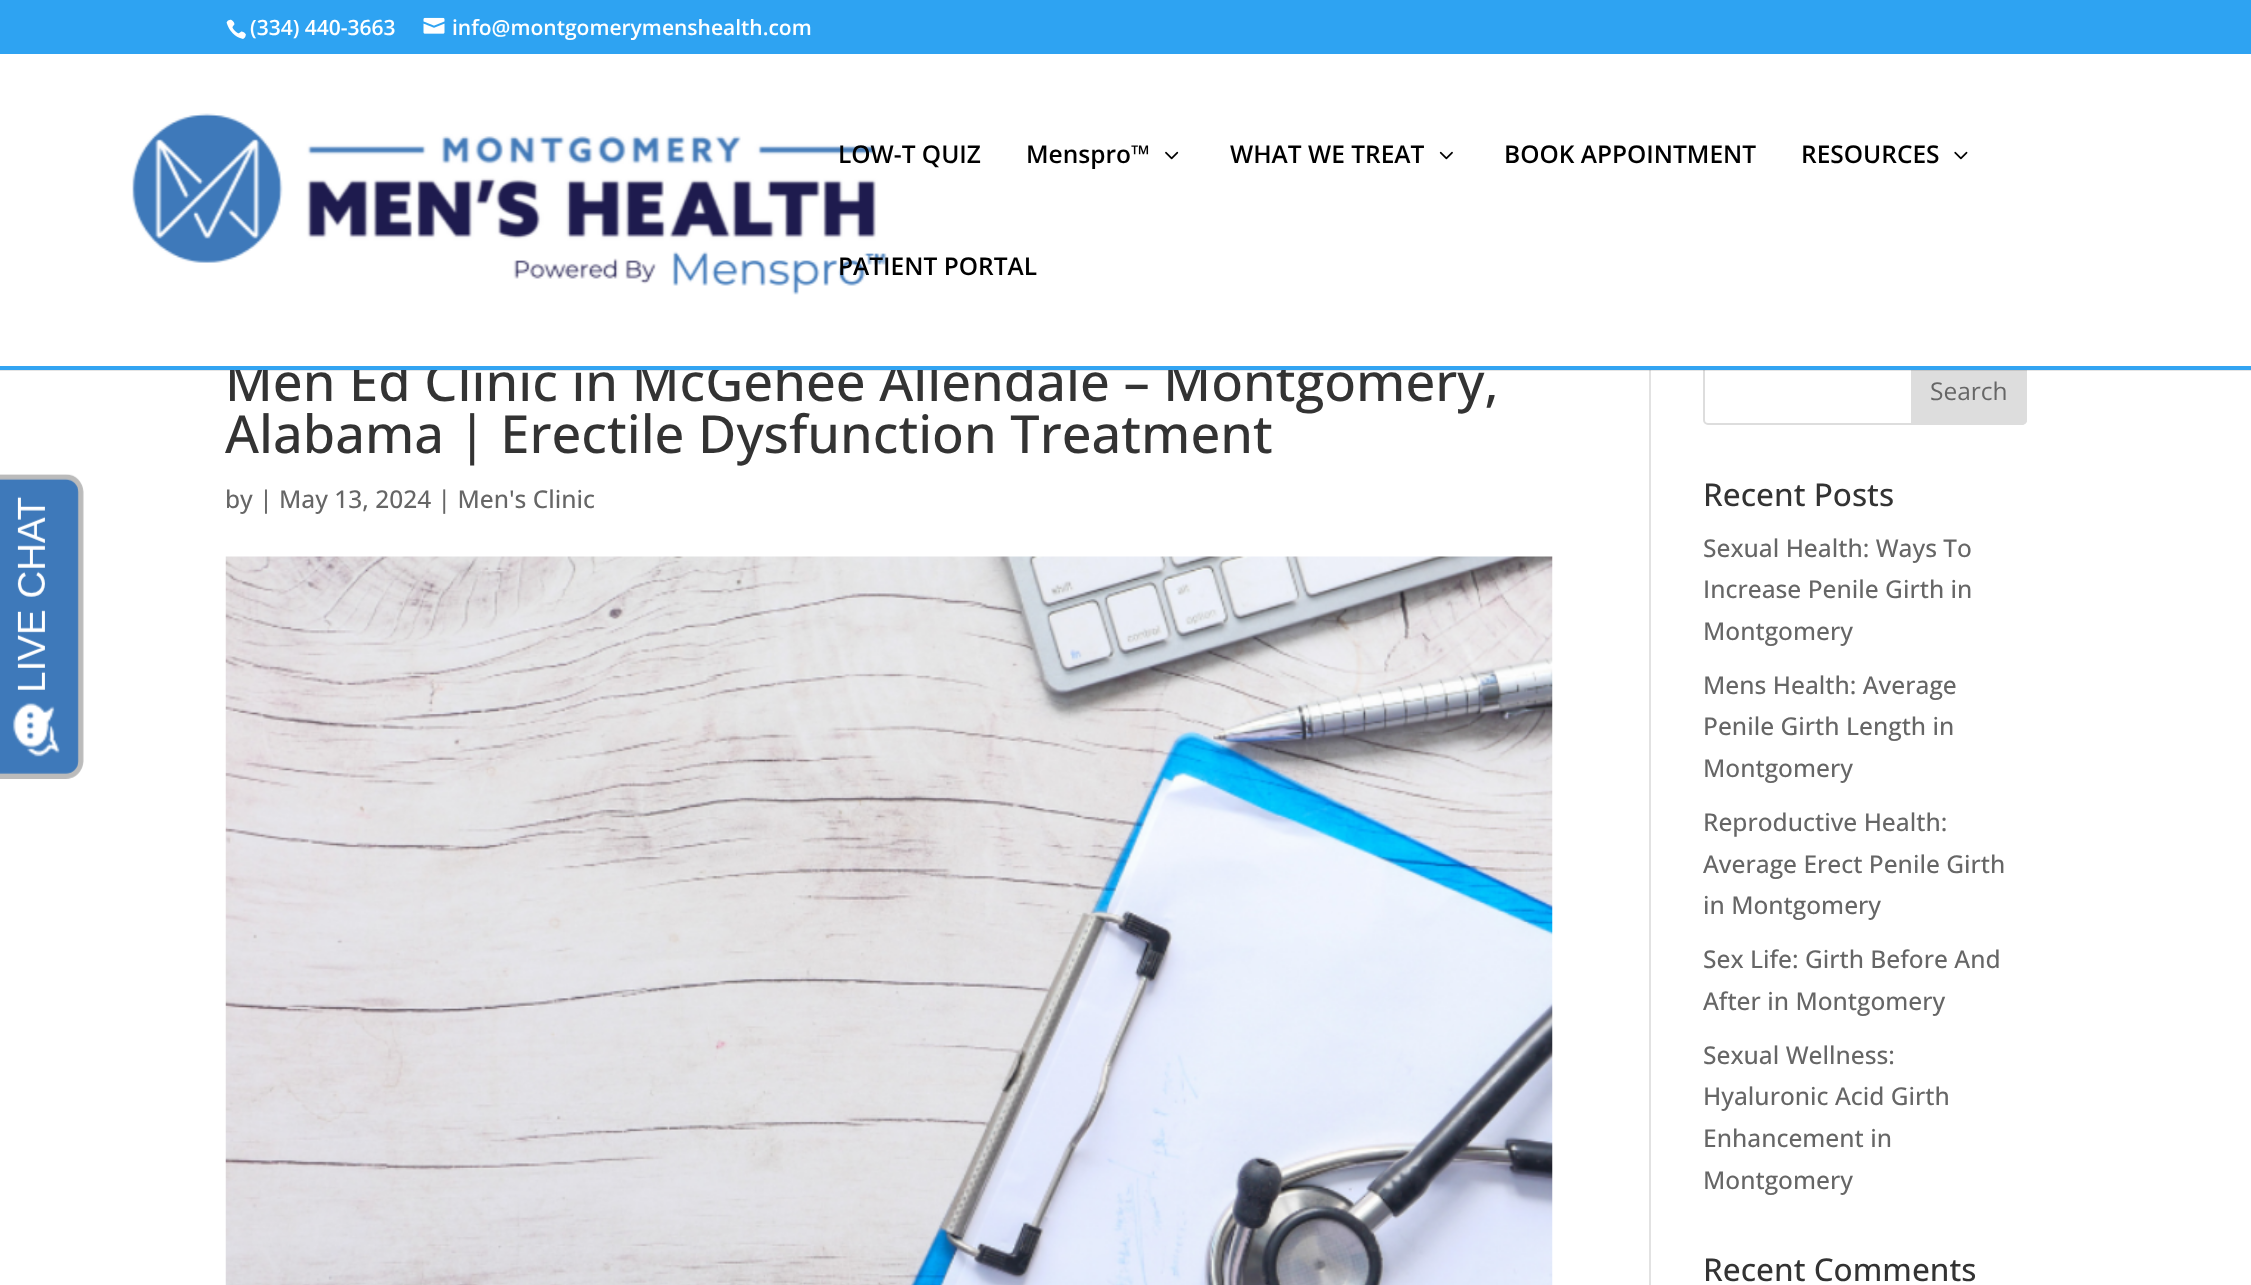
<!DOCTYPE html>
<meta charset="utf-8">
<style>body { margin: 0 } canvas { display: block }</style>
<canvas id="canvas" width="2251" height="1285"></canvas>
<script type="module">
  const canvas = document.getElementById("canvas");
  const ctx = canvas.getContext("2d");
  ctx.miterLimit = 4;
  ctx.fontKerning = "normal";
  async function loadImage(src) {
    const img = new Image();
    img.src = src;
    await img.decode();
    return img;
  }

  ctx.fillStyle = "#ffffff";
  ctx.fillRect(0, 0, 2251, 1285);
  ctx.drawImage(await loadImage("img1.png"), 0, 474, 84, 305);
  ctx.fillStyle = "#2ea3f2";
  ctx.fillRect(0, 0, 2251, 54);
  ctx.drawImage(await loadImage("img2.png"), 226, 19, 20, 20);
  ctx.font = "600 21px Open Sans";
  ctx.fillStyle = "#ffffff";
  ctx.fillText("(334) 440-3663", 250, 35);
  ctx.drawImage(await loadImage("img3.png"), 423, 17, 22, 17);
  ctx.fillText("info@montgomerymenshealth.com", 452, 35);
  ctx.beginPath();
  ctx.roundRect(1704, 356, 322, 68, 4);
  ctx.strokeStyle = "#dddddd";
  ctx.lineWidth = 2;
  ctx.stroke();
  ctx.fillStyle = "#dddddd";
  ctx.beginPath();
  ctx.roundRect(1912, 356, 114, 68, [0, 4, 4, 0]);
  ctx.fill();
  ctx.stroke();
  ctx.fillStyle = "#e2e2e2";
  ctx.fillRect(1649, 370, 2, 915);
  ctx.fillStyle = "rgba(0, 0, 0, 0.1)";
  ctx.fillRect(0, 370, 2251, 1);
  ctx.font = "500 52.5px Open Sans";
  ctx.fillStyle = "#333333";
  ctx.fillText("Men Ed Clinic in McGehee Allendale – Montgomery,", 225, 401);
  ctx.fillStyle = "#ffffff";
  ctx.fillRect(230, 355, 1797, 11);
  ctx.fillStyle = "#32a4f2";
  ctx.fillRect(0, 366, 2251, 4);
  ctx.drawImage(await loadImage("img4.png"), 132, 113, 755, 182);
  ctx.font = "600 24.5px Open Sans";
  ctx.fillStyle = "#000000";
  ctx.fillText("LOW-T QUIZ", 838, 163);
  ctx.fillText("Menspro™", 1026, 163);
  ctx.drawImage(await loadImage("img5.png"), 1165, 151, 14, 9);
  ctx.fillText("WHAT WE TREAT", 1230, 163);
  ctx.drawImage(await loadImage("img6.png"), 1439, 151, 14, 9);
  ctx.fillText("BOOK APPOINTMENT", 1504, 163);
  ctx.fillText("RESOURCES", 1801, 163);
  ctx.drawImage(await loadImage("img7.png"), 1954, 151, 14, 9);
  ctx.fillText("PATIENT PORTAL", 838, 275);
  ctx.font = "500 52.5px Open Sans";
  ctx.fillStyle = "#333333";
  ctx.fillText("Alabama | Erectile Dysfunction Treatment", 225, 453);
  ctx.font = "500 24.5px Open Sans";
  ctx.fillStyle = "#666666";
  ctx.fillText("by | May 13, 2024 | Men's Clinic", 225, 508);
  ctx.drawImage(await loadImage("img8.png"), 225, 556, 1328, 729);
  ctx.font = "24.5px Open Sans";
  ctx.fillText("Search", 1930, 400);
  ctx.font = "500 31.5px Open Sans";
  ctx.fillStyle = "#333333";
  ctx.fillText("Recent Posts", 1703, 506);
  ctx.font = "500 24.5px Open Sans";
  ctx.fillStyle = "#666666";
  ctx.fillText("Sexual Health: Ways To", 1703, 557);
  ctx.fillText("Increase Penile Girth in", 1703, 598);
  ctx.fillText("Montgomery", 1703, 640);
  ctx.fillText("Mens Health: Average", 1703, 694);
  ctx.fillText("Penile Girth Length in", 1703, 735);
  ctx.fillText("Montgomery", 1703, 777);
  ctx.fillText("Reproductive Health:", 1703, 831);
  ctx.fillText("Average Erect Penile Girth", 1703, 873);
  ctx.fillText("in Montgomery", 1703, 914);
  ctx.fillText("Sex Life: Girth Before And", 1703, 968);
  ctx.fillText("After in Montgomery", 1703, 1010);
  ctx.fillText("Sexual Wellness:", 1703, 1064);
  ctx.fillText("Hyaluronic Acid Girth", 1703, 1105);
  ctx.fillText("Enhancement in", 1703, 1147);
  ctx.fillText("Montgomery", 1703, 1189);
  ctx.font = "500 31.5px Open Sans";
  ctx.fillStyle = "#333333";
  ctx.fillText("Recent Comments", 1703, 1281);
</script>
